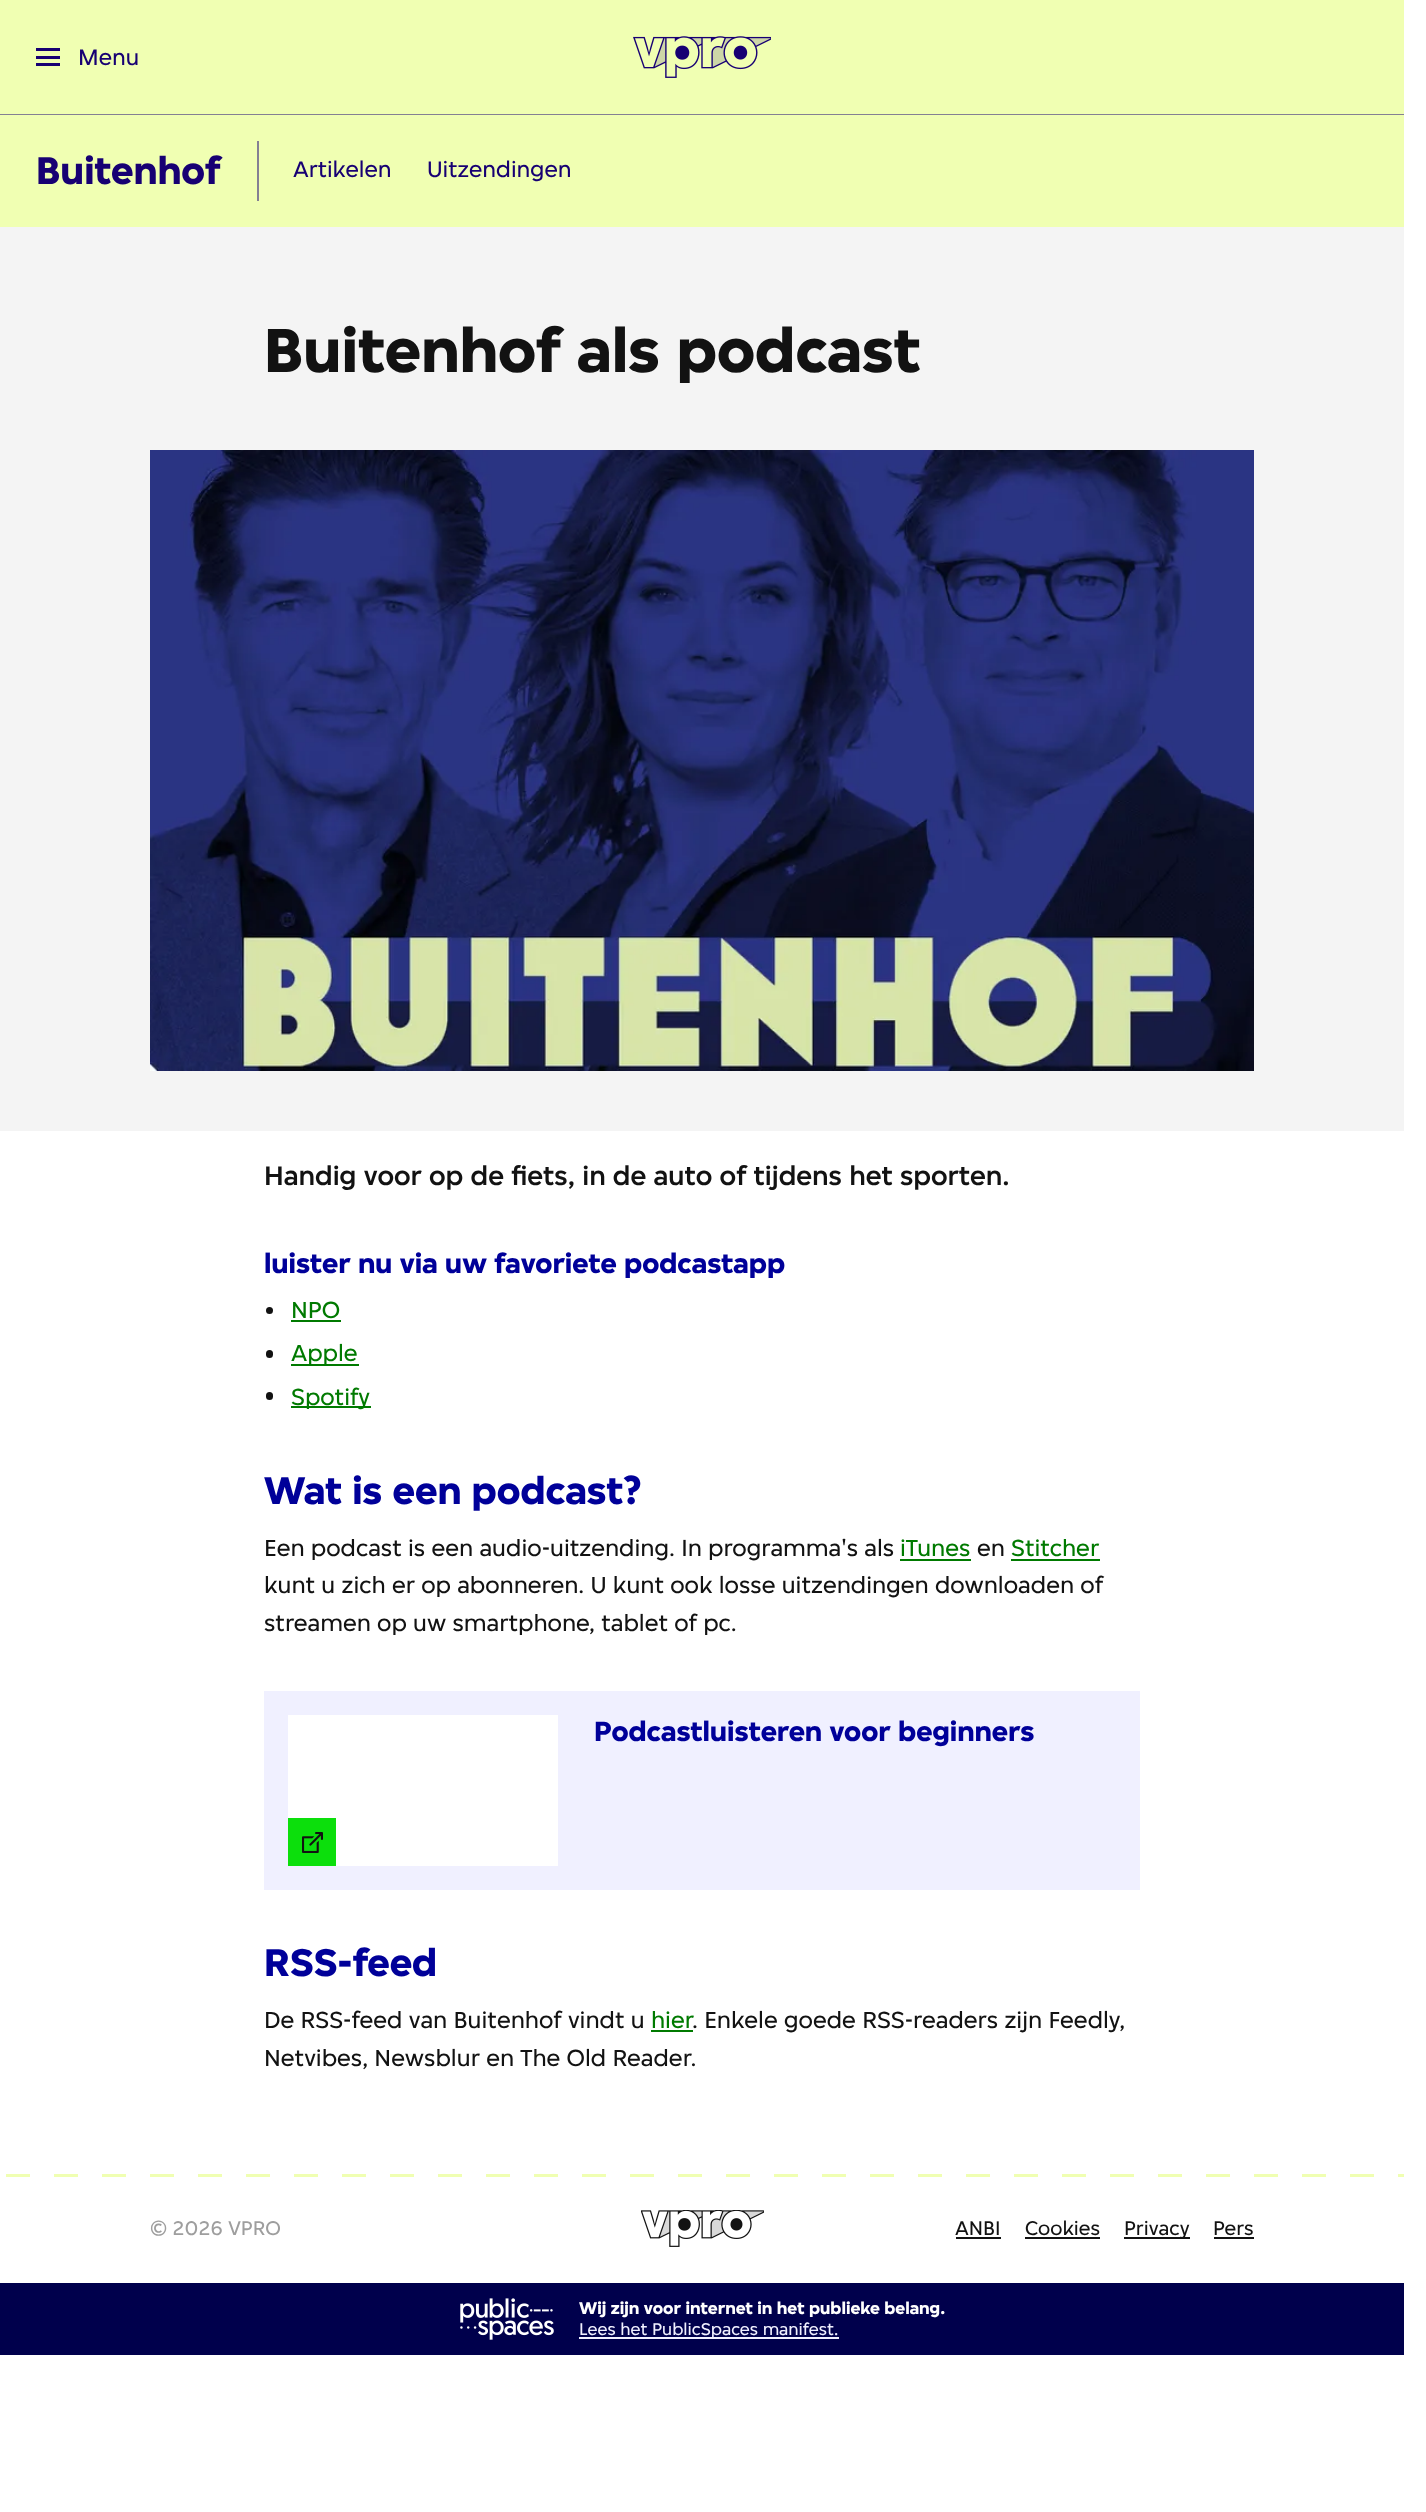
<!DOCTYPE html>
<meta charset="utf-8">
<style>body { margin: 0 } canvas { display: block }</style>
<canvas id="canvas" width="1426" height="2512"></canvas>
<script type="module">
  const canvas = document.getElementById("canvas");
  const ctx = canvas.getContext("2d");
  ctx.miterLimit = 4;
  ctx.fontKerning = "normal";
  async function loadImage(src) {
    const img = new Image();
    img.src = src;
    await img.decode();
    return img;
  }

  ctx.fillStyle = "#ffffff";
  ctx.fillRect(0, 0, 1426, 2512);
  ctx.fillStyle = "#f0ffb2";
  ctx.fillRect(0, 0, 1404, 114);
  ctx.fillStyle = "#170073";
  ctx.fillRect(36, 56, 24, 3);
  ctx.fillRect(36, 48, 24, 3);
  ctx.fillRect(36, 63, 24, 3);
  ctx.font = "24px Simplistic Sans";
  ctx.fillText("Menu", 78, 65);
  ctx.drawImage(await loadImage("img1.png"), 633, 36, 138, 42);
  ctx.fillStyle = "#f0ffb2";
  ctx.fillRect(0, 115, 1404, 112);
  ctx.fillStyle = "#848093";
  ctx.fillRect(0, 114, 1404, 1);
  ctx.font = "bold 41px Simplistic Sans";
  ctx.fillStyle = "#170073";
  ctx.fillText("Buitenhof", 36, 184);
  ctx.fillStyle = "#848093";
  ctx.fillRect(257, 141, 2, 60);
  ctx.font = "24px Simplistic Sans";
  ctx.fillStyle = "#170073";
  ctx.fillText("Artikelen", 293, 177);
  ctx.fillText("Uitzendingen", 427, 177);
  ctx.fillStyle = "#f4f4f4";
  ctx.fillRect(0, 227, 1404, 904);
  ctx.font = "bold 66px Simplistic Sans";
  ctx.fillStyle = "#121212";
  ctx.fillText("Buitenhof als podcast", 264, 372);
  ctx.drawImage(await loadImage("img2.png"), 150, 450, 1104, 621);
  ctx.font = "500 28.65px Simplistic Sans";
  ctx.fillText("Handig voor op de fiets, in de auto of tijdens het sporten.", 264, 1185);
  ctx.font = "bold 29.6px Simplistic Sans";
  ctx.fillStyle = "#000099";
  ctx.fillText("luister nu via uw favoriete podcastapp", 264, 1273);
  ctx.fillStyle = "#121212";
  ctx.beginPath();
  ctx.arc(269.5, 1310.5, 3.5, 0, Math.PI * 2);
  ctx.fill();
  ctx.font = "24.8px Simplistic Sans";
  ctx.fillStyle = "#007a00";
  ctx.fillText("NPO", 291, 1318);
  ctx.fillRect(291, 1320, 50, 2);
  ctx.fillStyle = "#121212";
  ctx.beginPath();
  ctx.roundRect(266, 1350, 7, 8, 3.5);
  ctx.fill();
  ctx.fillStyle = "#007a00";
  ctx.fillRect(291, 1364, 68, 2);
  ctx.fillText("Apple", 291, 1361);
  ctx.fillStyle = "#121212";
  ctx.beginPath();
  ctx.roundRect(266, 1392, 7, 8, 3.5);
  ctx.fill();
  ctx.fillStyle = "#007a00";
  ctx.fillRect(291, 1406, 80, 2);
  ctx.fillText("Spotify", 291, 1405);
  ctx.font = "bold 41px Simplistic Sans";
  ctx.fillStyle = "#000099";
  ctx.fillText("Wat is een podcast?", 264, 1504);
  ctx.font = "24.8px Simplistic Sans";
  ctx.fillStyle = "#121212";
  ctx.fillText("Een podcast is een audio-uitzending. In programma's als", 264, 1556);
  ctx.fillStyle = "#007a00";
  ctx.fillText("iTunes", 900, 1556);
  ctx.fillRect(900, 1559, 71, 2);
  ctx.fillStyle = "#121212";
  ctx.fillText("en", 977, 1556);
  ctx.fillStyle = "#007a00";
  ctx.fillText("Stitcher", 1011, 1556);
  ctx.fillRect(1011, 1559, 89, 2);
  ctx.fillStyle = "#121212";
  ctx.fillText("kunt u zich er op abonneren. U kunt ook losse uitzendingen downloaden of", 264, 1593);
  ctx.fillText("streamen op uw smartphone, tablet of pc.", 264, 1631);
  ctx.fillStyle = "#f0f0ff";
  ctx.fillRect(264, 1691, 876, 199);
  ctx.fillStyle = "#ffffff";
  ctx.fillRect(288, 1715, 270, 151);
  ctx.fillStyle = "#0cdf0c";
  ctx.fillRect(288, 1818, 48, 48);
  ctx.drawImage(await loadImage("img3.png"), 302, 1832, 21, 21);
  ctx.font = "bold 29.6px Simplistic Sans";
  ctx.fillStyle = "#000099";
  ctx.fillText("Podcastluisteren voor beginners", 594, 1741);
  ctx.font = "bold 41px Simplistic Sans";
  ctx.fillText("RSS-feed", 264, 1976);
  ctx.font = "24.8px Simplistic Sans";
  ctx.fillStyle = "#121212";
  ctx.fillText("De RSS-feed van Buitenhof vindt u", 264, 2028);
  ctx.fillStyle = "#007a00";
  ctx.fillText("hier", 651, 2028);
  ctx.fillRect(651, 2030, 42, 2);
  ctx.fillStyle = "#121212";
  ctx.fillText(". Enkele goede RSS-readers zijn Feedly,", 692, 2028);
  ctx.fillText("Netvibes, Newsblur en The Old Reader.", 264, 2066);
  ctx.drawImage(await loadImage("img4.png"), 6, 2174, 1398, 3);
  ctx.font = "21px Simplistic Sans";
  ctx.fillStyle = "#9e9e9e";
  ctx.fillText("© 2026 VPRO", 150, 2235);
  ctx.drawImage(await loadImage("img5.png"), 641, 2210, 123, 37);
  ctx.fillStyle = "#121212";
  ctx.fillText("ANBI", 955, 2235);
  ctx.fillRect(956, 2237, 45, 2);
  ctx.fillText("Cookies", 1025, 2235);
  ctx.fillRect(1025, 2237, 75, 2);
  ctx.fillRect(1124, 2237, 66, 2);
  ctx.fillText("Privacy", 1124, 2235);
  ctx.fillText("Pers", 1213, 2235);
  ctx.fillRect(1214, 2237, 40, 2);
  ctx.fillStyle = "#00004c";
  ctx.fillRect(0, 2283, 1404, 72);
  ctx.drawImage(await loadImage("img6.png"), 460, 2298, 94, 42);
  ctx.font = "bold 18px Simplistic Sans";
  ctx.fillStyle = "#ffffff";
  ctx.fillText("Wij zijn voor internet in het publieke belang.", 579, 2314);
  ctx.fillStyle = "#f0f0ff";
  ctx.fillRect(579, 2337, 260, 2);
  ctx.font = "18px Simplistic Sans";
  ctx.fillText("Lees het PublicSpaces manifest.", 579, 2335);
</script>
